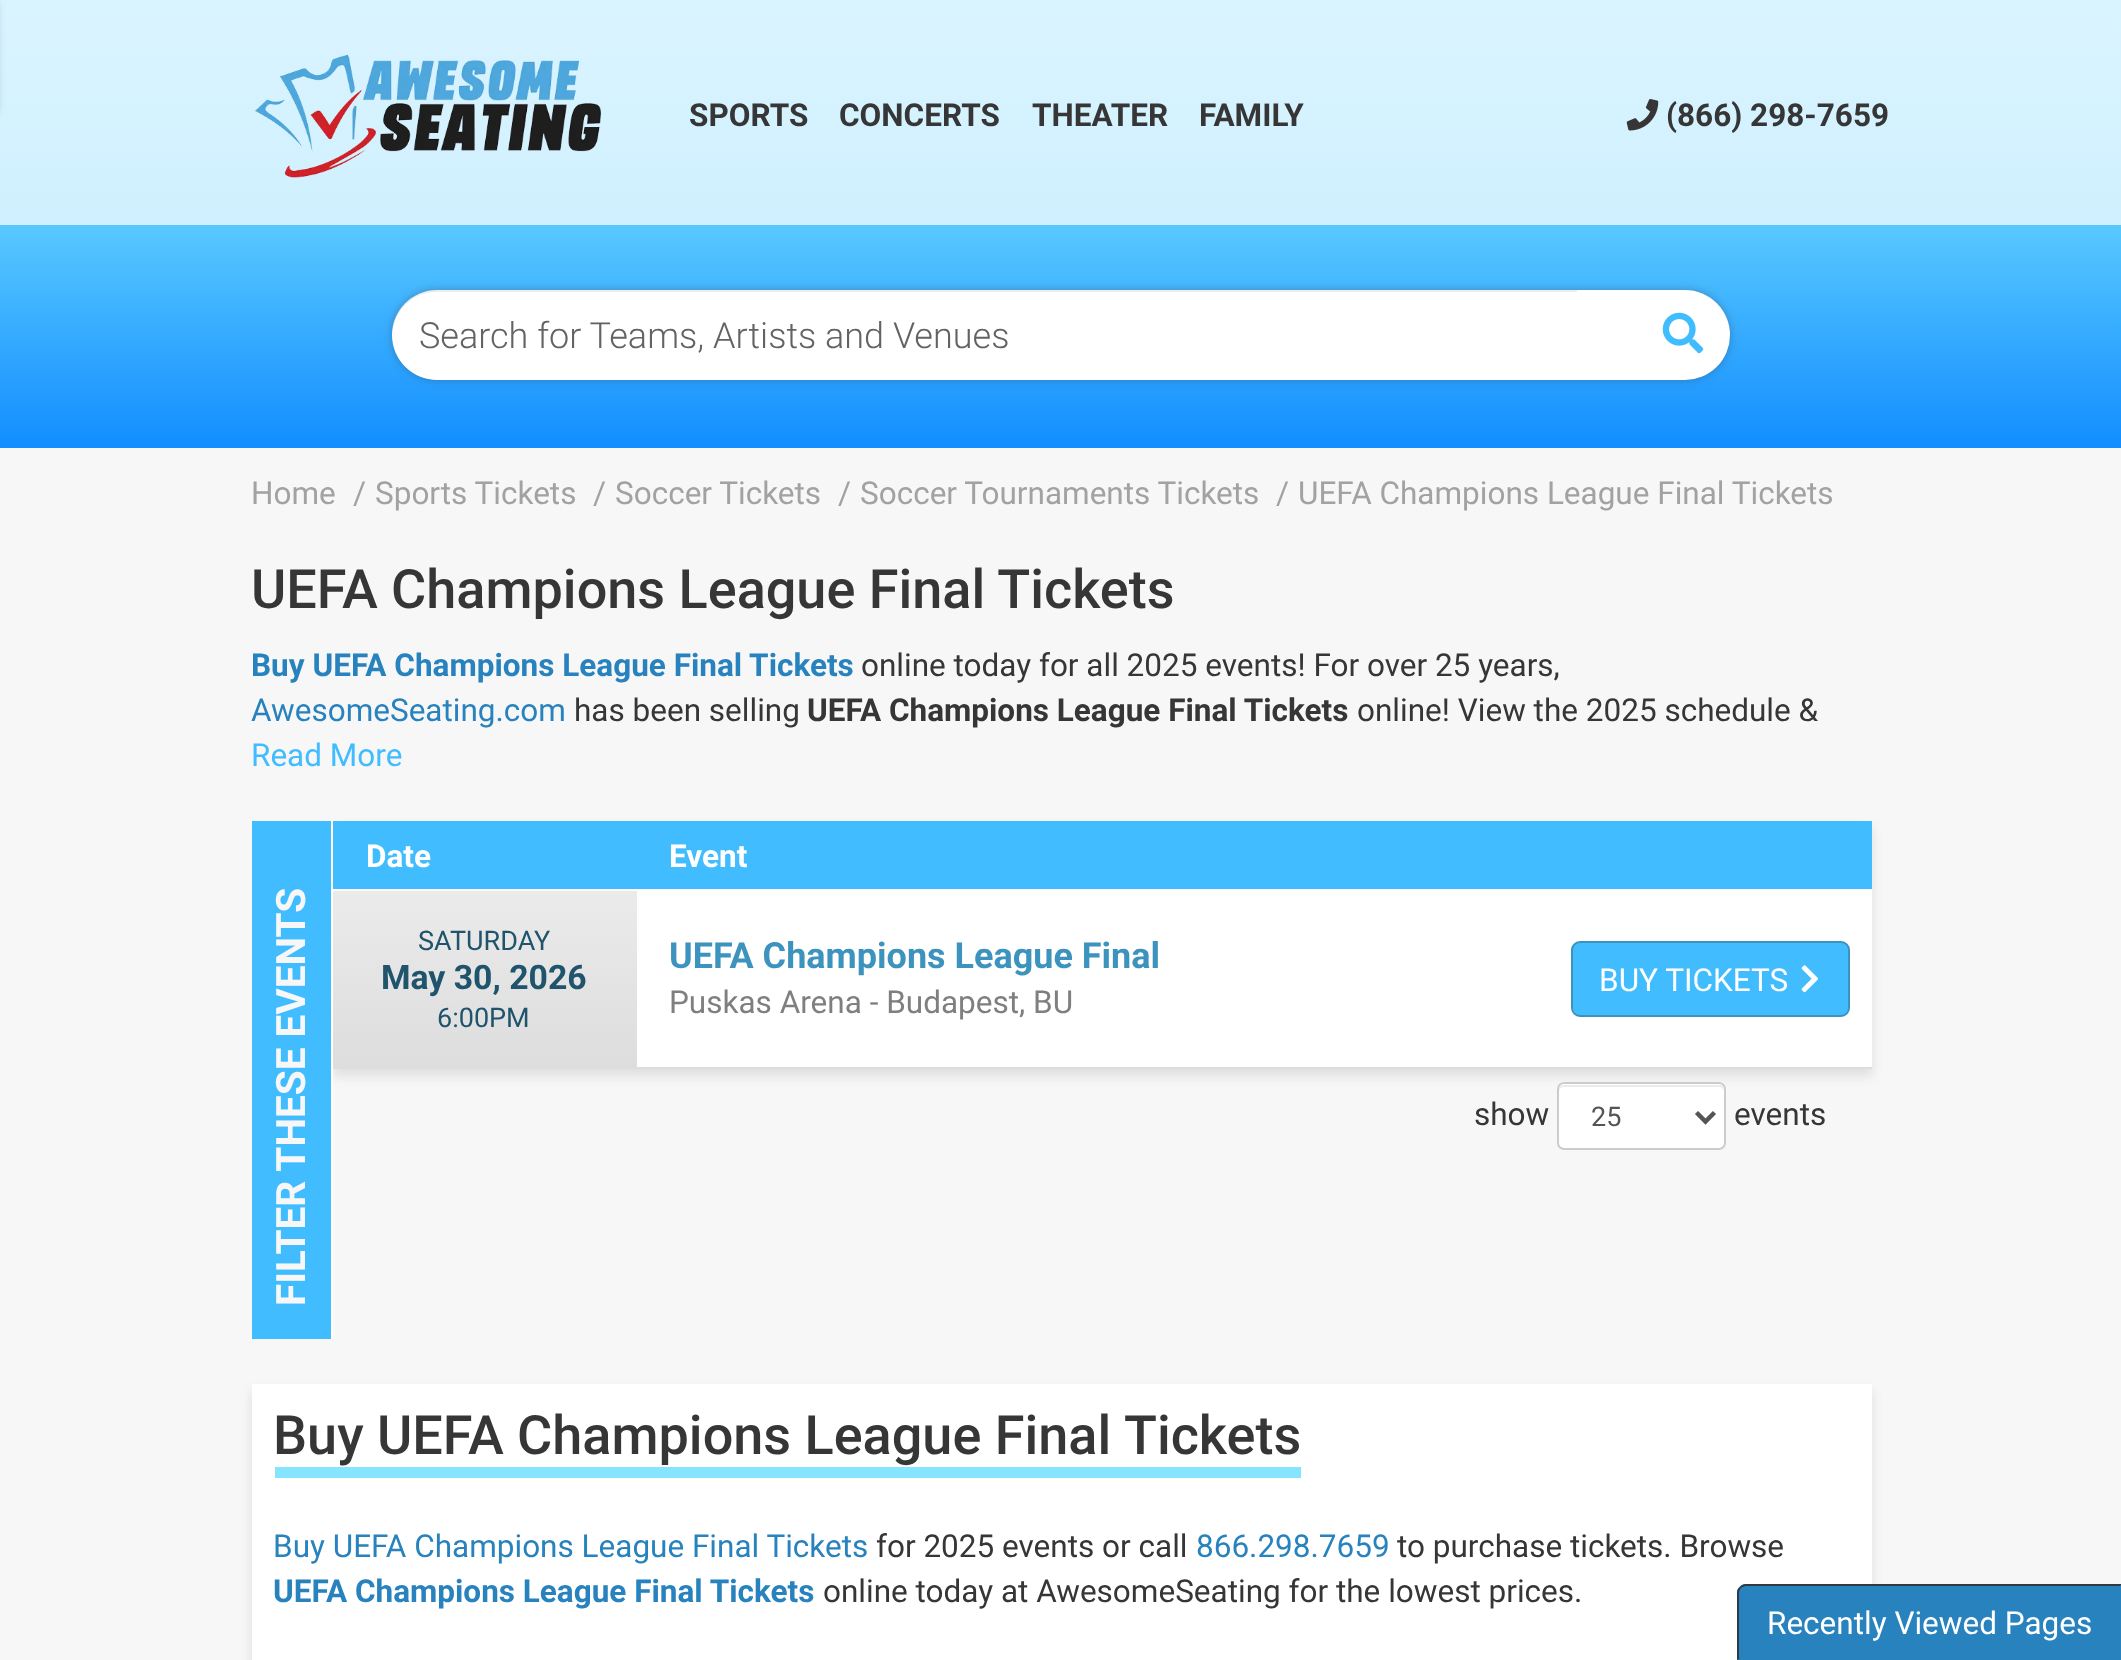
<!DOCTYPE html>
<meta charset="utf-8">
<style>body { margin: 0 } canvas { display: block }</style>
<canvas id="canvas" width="2121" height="1660"></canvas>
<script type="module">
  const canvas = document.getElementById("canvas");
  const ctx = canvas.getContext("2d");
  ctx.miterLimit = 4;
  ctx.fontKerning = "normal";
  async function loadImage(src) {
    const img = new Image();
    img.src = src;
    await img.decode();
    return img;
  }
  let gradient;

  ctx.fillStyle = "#f7f7f7";
  ctx.fillRect(0, 0, 2121, 1660);
  gradient = ctx.createLinearGradient(1061, 0, 1061, 225);
  gradient.addColorStop(0, "#daf4ff");
  gradient.addColorStop(1, "#d0f0ff");
  ctx.fillStyle = gradient;
  ctx.fillRect(0, 0, 2121, 225);
  ctx.fillStyle = "rgba(54, 54, 54, 0.35)";
  ctx.filter = "blur(4.5px)";
  ctx.beginPath();
  ctx.rect(-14, 0, 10, 113);
  ctx.fill();
  ctx.filter = "none";
  ctx.drawImage(await loadImage("img1.png"), 255, 54, 346, 124);
  ctx.font = "bold 31.5px Roboto";
  ctx.fillStyle = "#363636";
  ctx.fillText("SPORTS", 689, 126);
  ctx.fillText("CONCERTS", 839, 126);
  ctx.fillText("THEATER", 1032, 126);
  ctx.fillText("FAMILY", 1199, 126);
  ctx.drawImage(await loadImage("img2.png"), 1626, 99, 33, 32);
  ctx.fillText("(866) 298-7659", 1666, 126);
  gradient = ctx.createLinearGradient(1061, 223, 1061, 448);
  gradient.addColorStop(0, "#59c9ff");
  gradient.addColorStop(1, "#128dff");
  ctx.fillStyle = gradient;
  ctx.fillRect(0, 225, 2121, 223);
  ctx.fillStyle = "rgba(54, 54, 54, 0.35)";
  ctx.filter = "blur(4.5px)";
  ctx.beginPath();
  ctx.roundRect(392, 290, 1338, 90, 45);
  ctx.fill();
  ctx.filter = "none";
  ctx.fillStyle = "#ffffff";
  ctx.beginPath();
  ctx.roundRect(392, 290, 1188, 90, [45, 0, 0, 45]);
  ctx.fill();
  ctx.fillStyle = "rgba(0, 0, 0, 0.07)";
  ctx.beginPath();
  ctx.moveTo(436, 292);
  ctx.lineTo(1580, 292);
  ctx.lineTo(1580, 290);
  ctx.lineTo(437, 290);
  ctx.bezierCurveTo(412, 290, 391, 311, 392, 336);
  ctx.bezierCurveTo(393, 312, 412, 292, 436, 292);
  ctx.closePath();
  ctx.fill();
  ctx.font = "300 36px Roboto";
  ctx.fillStyle = "#636363";
  ctx.fillText("Search for Teams, Artists and Venues", 419, 348);
  ctx.fillStyle = "#ffffff";
  ctx.beginPath();
  ctx.roundRect(1577, 290, 153, 90, [0, 45, 45, 0]);
  ctx.fill();
  ctx.drawImage(await loadImage("img3.png"), 1662, 312, 42, 42);
  ctx.font = "31.5px Roboto";
  ctx.fillStyle = "#a2a2a2";
  ctx.fillText("Home", 251, 504);
  ctx.fillText("/", 353, 504);
  ctx.fillText("Sports Tickets", 375, 504);
  ctx.fillText("/", 593, 504);
  ctx.fillText("Soccer Tickets", 615, 504);
  ctx.fillText("/", 838, 504);
  ctx.fillText("Soccer Tournaments Tickets", 860, 504);
  ctx.fillText("/", 1276, 504);
  ctx.fillText("UEFA Champions League Final Tickets", 1298, 504);
  ctx.font = "500 54px Roboto";
  ctx.fillStyle = "#363636";
  ctx.fillText("UEFA Champions League Final Tickets", 251, 608);
  ctx.font = "bold 31.5px Roboto";
  ctx.fillStyle = "#2782be";
  ctx.fillText("Buy UEFA Champions League Final Tickets", 251, 676);
  ctx.font = "31.5px Roboto";
  ctx.fillStyle = "#363636";
  ctx.fillText("online today for all 2025 events! For over 25 years,", 861, 676);
  ctx.fillStyle = "#2782be";
  ctx.fillText("AwesomeSeating.com", 251, 721);
  ctx.fillStyle = "#363636";
  ctx.fillText("has been selling", 574, 721);
  ctx.font = "bold 31.5px Roboto";
  ctx.fillText("UEFA Champions League Final Tickets", 807, 721);
  ctx.font = "31.5px Roboto";
  ctx.fillText("online! View the 2025 schedule &", 1357, 721);
  ctx.fillStyle = "#41bdff";
  ctx.fillText("Read More", 251, 766);
  ctx.fillStyle = "rgba(178, 178, 178, 0.35)";
  ctx.filter = "blur(5.5px)";
  ctx.beginPath();
  ctx.rect(333, 828, 1539, 248);
  ctx.fill();
  ctx.filter = "none";
  ctx.fillStyle = "#41bdff";
  ctx.fillRect(252, 821, 79, 518);
  ctx.fillStyle = "#ffffff";
  ctx.fillRect(331, 889, 1541, 2);
  ctx.fillStyle = "#dddddd";
  ctx.fillRect(331, 1067, 1541, 2);
  ctx.fillStyle = "#ffffff";
  ctx.fillRect(331, 821, 2, 518);
  ctx.font = "bold 40.5px Roboto";
  ctx.fillStyle = "#f7f7f7";
  ctx.save();
  ctx.translate(305, 1306);
  ctx.rotate(-90 * Math.PI / 180);
  ctx.fillText("FILTER THESE EVENTS", 0, 0);
  ctx.restore();
  ctx.fillStyle = "#ffffff";
  ctx.fillRect(637, 891, 1235, 176);
  ctx.fillStyle = "#41bdff";
  ctx.fillRect(333, 821, 1539, 68);
  ctx.font = "bold 31.5px Roboto";
  ctx.fillStyle = "#ffffff";
  ctx.fillText("Date", 366, 867);
  ctx.fillText("Event", 669, 867);
  gradient = ctx.createLinearGradient(485, 891, 485, 1067);
  gradient.addColorStop(0, "#ebebeb");
  gradient.addColorStop(1, "#dddddd");
  ctx.fillStyle = gradient;
  ctx.fillRect(333, 891, 304, 176);
  ctx.font = "27px Roboto";
  ctx.fillStyle = "#20536c";
  ctx.fillText("SATURDAY", 418, 950);
  ctx.font = "bold 33.75px Roboto";
  ctx.fillText("May 30, 2026", 381, 989);
  ctx.font = "27px Roboto";
  ctx.fillText("6:00PM", 437, 1027);
  ctx.font = "bold 36px Roboto";
  ctx.fillStyle = "#3c93be";
  ctx.fillText("UEFA Champions League Final", 669, 968);
  ctx.font = "31.5px Roboto";
  ctx.fillStyle = "#7f7f7f";
  ctx.fillText("Puskas Arena - Budapest, BU", 669, 1013);
  ctx.fillStyle = "#41bdff";
  ctx.beginPath();
  ctx.roundRect(1572, 942, 277, 74, 8);
  ctx.fill();
  ctx.strokeStyle = "#3c93be";
  ctx.lineWidth = 2;
  ctx.stroke();
  ctx.fillStyle = "#ffffff";
  ctx.fillText("BUY TICKETS", 1599, 991);
  ctx.drawImage(await loadImage("img4.png"), 1801, 965, 17, 28);
  ctx.fillStyle = "#363636";
  ctx.fillText("show", 1474, 1125);
  ctx.fillStyle = "#ffffff";
  ctx.beginPath();
  ctx.roundRect(1557, 1082, 169, 68, 7);
  ctx.fill();
  ctx.fillStyle = "#ececec";
  ctx.beginPath();
  ctx.moveTo(1564, 1087);
  ctx.lineTo(1719, 1087);
  ctx.bezierCurveTo(1721, 1087, 1724, 1089, 1724, 1091);
  ctx.lineTo(1724, 1090);
  ctx.bezierCurveTo(1724, 1087, 1722, 1085, 1719, 1085);
  ctx.lineTo(1564, 1085);
  ctx.bezierCurveTo(1561, 1085, 1559, 1087, 1559, 1090);
  ctx.lineTo(1559, 1091);
  ctx.bezierCurveTo(1559, 1089, 1561, 1087, 1564, 1087);
  ctx.closePath();
  ctx.fill();
  ctx.beginPath();
  ctx.roundRect(1558, 1083, 167, 66, 6);
  ctx.strokeStyle = "#cccccc";
  ctx.stroke();
  ctx.beginPath();
  ctx.moveTo(1696.5, 1112.5);
  ctx.lineTo(1705.5, 1121.5);
  ctx.lineTo(1714.5, 1112.5);
  ctx.strokeStyle = "#555555";
  ctx.lineWidth = 4.5;
  ctx.stroke();
  ctx.font = "27px Roboto";
  ctx.fillStyle = "#555555";
  ctx.fillText("25", 1591, 1126);
  ctx.font = "31.5px Roboto";
  ctx.fillStyle = "#363636";
  ctx.fillText("events", 1734, 1125);
  ctx.fillStyle = "rgba(178, 178, 178, 0.35)";
  ctx.filter = "blur(5.5px)";
  ctx.beginPath();
  ctx.rect(252, 1391, 1620, 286);
  ctx.fill();
  ctx.filter = "none";
  ctx.fillStyle = "#ffffff";
  ctx.fillRect(252, 1384, 1620, 276);
  ctx.fillStyle = "#87e4ff";
  ctx.fillRect(275, 1467, 1026, 11);
  ctx.font = "500 54px Roboto";
  ctx.fillStyle = "#363636";
  ctx.fillText("Buy UEFA Champions League Final", 273, 1454);
  ctx.fillText("Tickets", 1124, 1454);
  ctx.font = "31.5px Roboto";
  ctx.fillStyle = "#2782be";
  ctx.fillText("Buy UEFA Champions League Final Tickets", 273, 1557);
  ctx.fillStyle = "#363636";
  ctx.fillText("for 2025 events or call", 876, 1557);
  ctx.fillStyle = "#2782be";
  ctx.fillText("866.298.7659", 1196, 1557);
  ctx.fillStyle = "#363636";
  ctx.fillText("to purchase tickets. Browse", 1397, 1557);
  ctx.font = "bold 31.5px Roboto";
  ctx.fillStyle = "#2782be";
  ctx.fillText("UEFA Champions League Final Tickets", 273, 1602);
  ctx.font = "31.5px Roboto";
  ctx.fillStyle = "#363636";
  ctx.fillText("online today at AwesomeSeating for the lowest prices.", 823, 1602);
  ctx.fillStyle = "#2782be";
  ctx.beginPath();
  ctx.moveTo(1746, 1584);
  ctx.lineTo(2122, 1584);
  ctx.lineTo(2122, 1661);
  ctx.lineTo(1737, 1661);
  ctx.lineTo(1737, 1593);
  ctx.bezierCurveTo(1737, 1588, 1741, 1584, 1746, 1584);
  ctx.closePath();
  ctx.fill();
  ctx.fillStyle = "#2d3a42";
  ctx.beginPath();
  ctx.moveTo(1746, 1584);
  ctx.bezierCurveTo(1744, 1584, 1741, 1585, 1740, 1587);
  ctx.lineTo(1741, 1588);
  ctx.bezierCurveTo(1742, 1587, 1744, 1586, 1746, 1586);
  ctx.lineTo(2120, 1586);
  ctx.lineTo(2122, 1584);
  ctx.closePath();
  ctx.fill();
  ctx.beginPath();
  ctx.moveTo(1737, 1593);
  ctx.lineTo(1737, 1660);
  ctx.lineTo(1740, 1658);
  ctx.lineTo(1739, 1658);
  ctx.lineTo(1739, 1593);
  ctx.bezierCurveTo(1739, 1591, 1740, 1589, 1741, 1588);
  ctx.lineTo(1740, 1587);
  ctx.bezierCurveTo(1738, 1588, 1737, 1590, 1737, 1593);
  ctx.closePath();
  ctx.fill();
  ctx.fillStyle = "#ffffff";
  ctx.fillText("Recently Viewed Pages", 1767, 1634);
</script>
